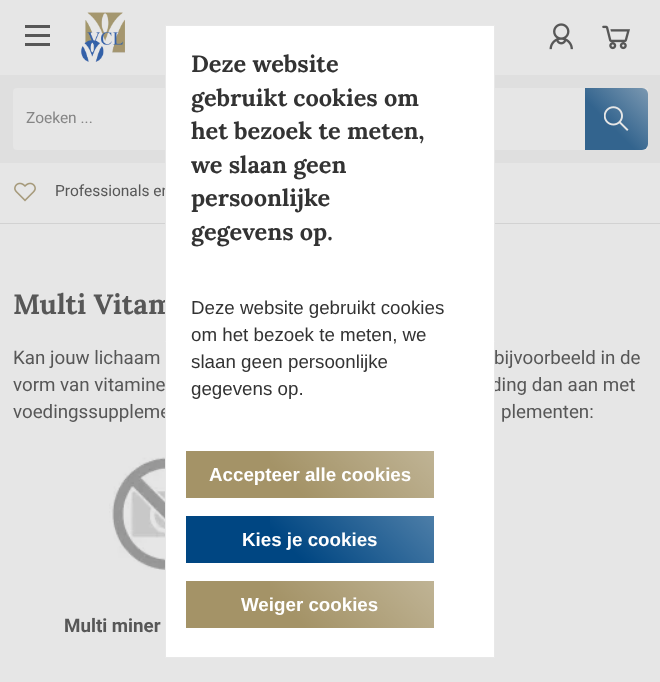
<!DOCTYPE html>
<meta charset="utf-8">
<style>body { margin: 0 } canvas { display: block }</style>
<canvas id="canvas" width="660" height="682"></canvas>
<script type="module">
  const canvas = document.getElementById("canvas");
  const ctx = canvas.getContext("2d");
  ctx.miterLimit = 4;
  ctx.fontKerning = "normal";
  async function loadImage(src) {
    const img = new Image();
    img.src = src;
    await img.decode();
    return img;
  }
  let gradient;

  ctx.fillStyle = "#e6e6e6";
  ctx.fillRect(0, 0, 660, 682);
  ctx.fillStyle = "#575757";
  ctx.fillRect(25, 25, 25, 3);
  ctx.fillRect(25, 34, 25, 3);
  ctx.fillRect(25, 43, 25, 3);
  ctx.drawImage(await loadImage("img1.png"), 81, 12, 44, 50);
  ctx.drawImage(await loadImage("img2.png"), 549, 23, 24, 27);
  ctx.drawImage(await loadImage("img3.png"), 602, 25, 28, 25);
  ctx.fillStyle = "#dfdfdf";
  ctx.fillRect(0, 75, 660, 88);
  ctx.fillStyle = "#e6e6e6";
  ctx.beginPath();
  ctx.roundRect(13, 88, 635, 62, 4);
  ctx.fill();
  ctx.font = "15.5px Roboto";
  ctx.fillStyle = "#858585";
  ctx.fillText("Zoeken ...", 26, 123);
  ctx.fillStyle = "#33648e";
  ctx.beginPath();
  ctx.roundRect(585, 88, 63, 62, [0, 6, 6, 0]);
  ctx.fill();
  gradient = ctx.createLinearGradient(648, 88, 585, 150);
  gradient.addColorStop(0, "rgba(230, 230, 230, 0.4)");
  gradient.addColorStop(0.6, "rgba(230, 230, 230, 0)");
  ctx.fillStyle = gradient;
  ctx.fillRect(585, 88, 63, 62);
  ctx.drawImage(await loadImage("img4.png"), 604, 106, 25, 25);
  ctx.fillStyle = "#d2d2d2";
  ctx.fillRect(0, 223, 660, 1);
  ctx.drawImage(await loadImage("img5.png"), 14, 182, 22, 20);
  ctx.fillStyle = "#575757";
  ctx.fillText("Professionals en", 55, 196);
  ctx.font = "bold 28px Lora";
  ctx.fillText("Multi Vitam", 13, 314);
  ctx.font = "18.75px Roboto";
  ctx.fillText("bijvoorbeeld in de", 494, 364);
  ctx.fillText("ding dan aan met", 491, 391);
  ctx.fillText("voedingssuppleme", 13, 418);
  ctx.fillStyle = "#ffffff";
  ctx.beginPath();
  ctx.rect(165.5, 25.5, 329, 632);
  ctx.fill();
  ctx.strokeStyle = "#e8e8e8";
  ctx.stroke();
  ctx.font = "bold 23.5px Lora";
  ctx.fillStyle = "#333333";
  ctx.fillText("Deze website", 191, 72);
  ctx.fillText("gebruikt cookies om", 191, 106);
  ctx.fillText("het bezoek te meten,", 191, 139);
  ctx.fillText("we slaan geen", 191, 173);
  ctx.fillText("persoonlijke", 191, 206);
  ctx.fillText("gegevens op.", 191, 240);
  ctx.font = "18.75px Liberation Sans";
  ctx.fillText("Deze website gebruikt cookies", 191, 314);
  ctx.fillText("om het bezoek te meten, we", 191, 341);
  ctx.fillText("slaan geen persoonlijke", 191, 368);
  ctx.fillText("gegevens op.", 191, 395);
  ctx.fillStyle = "#a49367";
  ctx.fillRect(186, 451, 248, 47);
  gradient = ctx.createLinearGradient(383, 401, 237, 548);
  gradient.addColorStop(0, "rgba(255, 255, 255, 0.3)");
  gradient.addColorStop(0.6, "rgba(255, 255, 255, 0)");
  ctx.fillStyle = gradient;
  ctx.fillRect(270, 451, 164, 47);
  ctx.font = "bold 18.75px Liberation Sans";
  ctx.fillStyle = "#ffffff";
  ctx.fillText("Accepteer alle cookies", 209, 481);
  ctx.fillStyle = "#004682";
  ctx.fillRect(186, 516, 248, 47);
  gradient = ctx.createLinearGradient(383, 466, 237, 613);
  gradient.addColorStop(0, "rgba(255, 255, 255, 0.3)");
  gradient.addColorStop(0.6, "rgba(255, 255, 255, 0)");
  ctx.fillStyle = gradient;
  ctx.fillRect(270, 516, 164, 47);
  ctx.fillStyle = "#ffffff";
  ctx.fillText("Kies je cookies", 242, 546);
  ctx.fillStyle = "#a49367";
  ctx.fillRect(186, 581, 248, 47);
  gradient = ctx.createLinearGradient(383, 531, 237, 678);
  gradient.addColorStop(0, "rgba(255, 255, 255, 0.3)");
  gradient.addColorStop(0.6, "rgba(255, 255, 255, 0)");
  ctx.fillStyle = gradient;
  ctx.fillRect(270, 581, 164, 47);
  ctx.fillStyle = "#ffffff";
  ctx.fillText("Weiger cookies", 241, 611);
  ctx.font = "18.75px Roboto";
  ctx.fillStyle = "#575757";
  ctx.fillText("Kan jouw lichaam", 13, 364);
  ctx.fillText("vorm van vitamine", 13, 391);
  ctx.fillText("plementen:", 501, 418);
  ctx.drawImage(await loadImage("img6.png"), 109, 457, 56, 113);
  ctx.font = "bold 18.75px Roboto";
  ctx.fillText("Multi miner", 64, 632);
</script>
